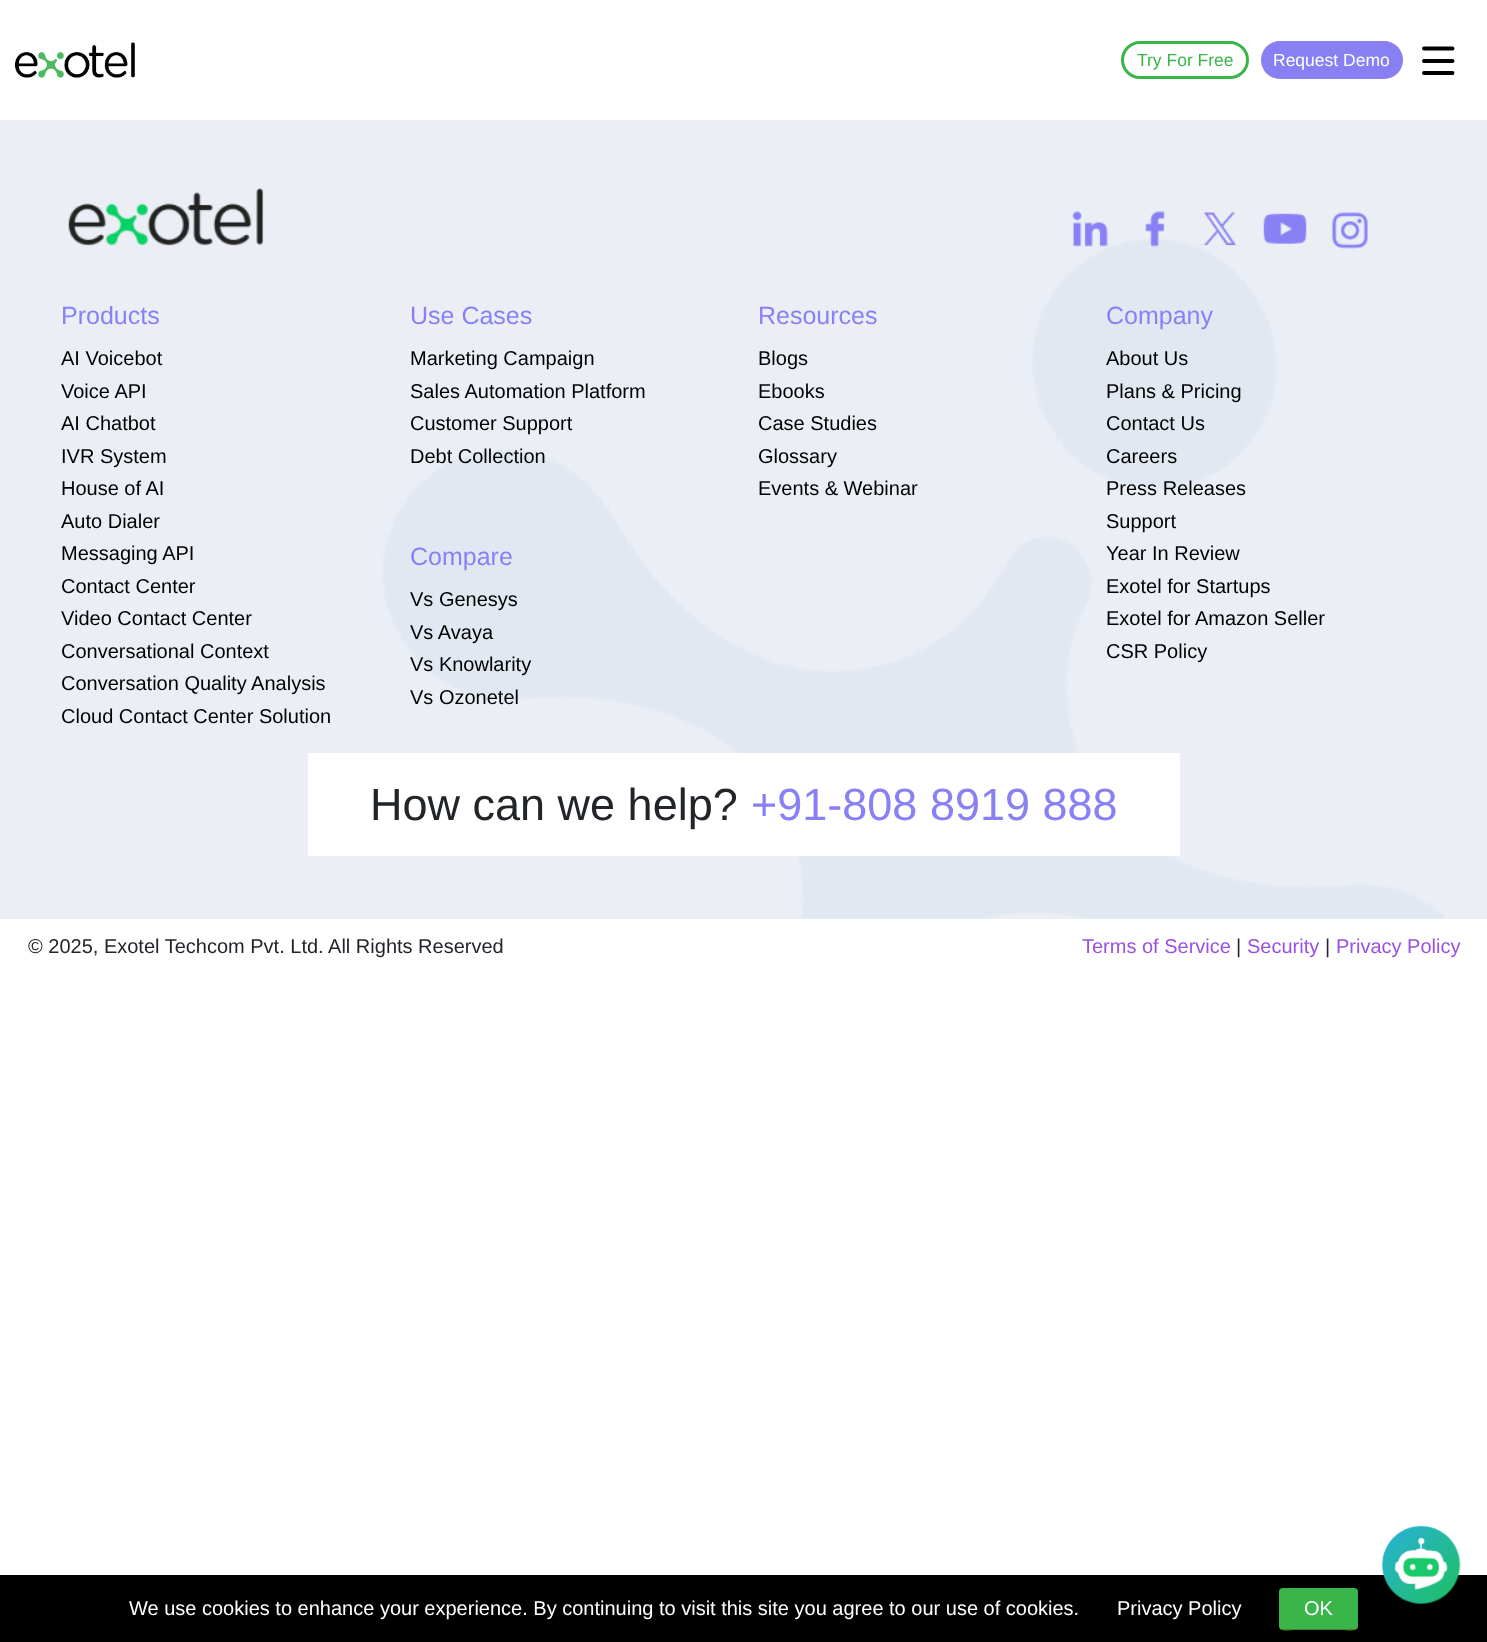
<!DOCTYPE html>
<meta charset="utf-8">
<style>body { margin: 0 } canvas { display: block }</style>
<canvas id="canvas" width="1487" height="1642"></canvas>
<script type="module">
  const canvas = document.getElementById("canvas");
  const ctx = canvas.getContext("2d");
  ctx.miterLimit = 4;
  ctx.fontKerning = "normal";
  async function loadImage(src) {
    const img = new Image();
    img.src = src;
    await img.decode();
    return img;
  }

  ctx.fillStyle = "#ffffff";
  ctx.fillRect(0, 0, 1487, 1642);
  ctx.drawImage(await loadImage("img1.png"), 15, 42, 120, 36);
  ctx.beginPath();
  ctx.roundRect(1122.5, 42.5, 125, 35, 17.5);
  ctx.strokeStyle = "#39b54a";
  ctx.lineWidth = 3;
  ctx.stroke();
  ctx.font = "17.5px Liberation Sans";
  ctx.fillStyle = "#39b54a";
  ctx.fillText("Try For Free", 1137, 66);
  ctx.fillStyle = "#887ff2";
  ctx.beginPath();
  ctx.roundRect(1261, 41, 142, 38, 19);
  ctx.fill();
  ctx.fillStyle = "#ffffff";
  ctx.fillText("Request Demo", 1273, 66);
  ctx.beginPath();
  ctx.moveTo(1424, 48.5);
  ctx.lineTo(1452.5, 48.5);
  ctx.moveTo(1424, 61);
  ctx.lineTo(1452.5, 61);
  ctx.moveTo(1452.5, 73);
  ctx.lineTo(1424, 73);
  ctx.strokeStyle = "#000000";
  ctx.lineWidth = 3.9;
  ctx.lineCap = "round";
  ctx.stroke();
  ctx.fillStyle = "#ebeff5";
  ctx.fillRect(0, 120, 1487, 799);
  ctx.drawImage(await loadImage("img2.png"), 382, 238, 1063, 681);
  ctx.drawImage(await loadImage("img3.png"), 68, 188, 196, 58);
  ctx.drawImage(await loadImage("img4.png"), 1072, 211, 36, 36);
  ctx.drawImage(await loadImage("img5.png"), 1145, 211, 20, 36);
  ctx.drawImage(await loadImage("img6.png"), 1203, 212, 34, 34);
  ctx.drawImage(await loadImage("img7.png"), 1263, 213, 44, 31);
  ctx.drawImage(await loadImage("img8.png"), 1332, 212, 36, 37);
  ctx.font = "25px Liberation Sans";
  ctx.fillStyle = "#8980f5";
  ctx.fillText("Products", 61, 324);
  ctx.font = "20px Liberation Sans";
  ctx.fillStyle = "#000000";
  ctx.fillText("AI Voicebot", 61, 365);
  ctx.fillText("Voice API", 61, 398);
  ctx.fillText("AI Chatbot", 61, 430);
  ctx.fillText("IVR System", 61, 463);
  ctx.fillText("House of AI", 61, 495);
  ctx.fillText("Auto Dialer", 61, 528);
  ctx.fillText("Messaging API", 61, 560);
  ctx.fillText("Contact Center", 61, 593);
  ctx.fillText("Video Contact Center", 61, 625);
  ctx.fillText("Conversational Context", 61, 658);
  ctx.fillText("Conversation Quality Analysis", 61, 690);
  ctx.fillText("Cloud Contact Center Solution", 61, 723);
  ctx.font = "25px Liberation Sans";
  ctx.fillStyle = "#8980f5";
  ctx.fillText("Use Cases", 410, 324);
  ctx.font = "20px Liberation Sans";
  ctx.fillStyle = "#000000";
  ctx.fillText("Marketing Campaign", 410, 365);
  ctx.fillText("Sales Automation Platform", 410, 398);
  ctx.fillText("Customer Support", 410, 430);
  ctx.fillText("Debt Collection", 410, 463);
  ctx.font = "25px Liberation Sans";
  ctx.fillStyle = "#8980f5";
  ctx.fillText("Compare", 410, 565);
  ctx.font = "20px Liberation Sans";
  ctx.fillStyle = "#000000";
  ctx.fillText("Vs Genesys", 410, 606);
  ctx.fillText("Vs Avaya", 410, 639);
  ctx.fillText("Vs Knowlarity", 410, 671);
  ctx.fillText("Vs Ozonetel", 410, 704);
  ctx.font = "25px Liberation Sans";
  ctx.fillStyle = "#8980f5";
  ctx.fillText("Resources", 758, 324);
  ctx.font = "20px Liberation Sans";
  ctx.fillStyle = "#000000";
  ctx.fillText("Blogs", 758, 365);
  ctx.fillText("Ebooks", 758, 398);
  ctx.fillText("Case Studies", 758, 430);
  ctx.fillText("Glossary", 758, 463);
  ctx.fillText("Events & Webinar", 758, 495);
  ctx.font = "25px Liberation Sans";
  ctx.fillStyle = "#8980f5";
  ctx.fillText("Company", 1106, 324);
  ctx.font = "20px Liberation Sans";
  ctx.fillStyle = "#000000";
  ctx.fillText("About Us", 1106, 365);
  ctx.fillText("Plans & Pricing", 1106, 398);
  ctx.fillText("Contact Us", 1106, 430);
  ctx.fillText("Careers", 1106, 463);
  ctx.fillText("Press Releases", 1106, 495);
  ctx.fillText("Support", 1106, 528);
  ctx.fillText("Year In Review", 1106, 560);
  ctx.fillText("Exotel for Startups", 1106, 593);
  ctx.fillText("Exotel for Amazon Seller", 1106, 625);
  ctx.fillText("CSR Policy", 1106, 658);
  ctx.fillStyle = "#ffffff";
  ctx.fillRect(308, 753, 872, 103);
  ctx.font = "45px Liberation Sans";
  ctx.fillStyle = "#212529";
  ctx.fillText("How can we help?", 370, 820);
  ctx.fillStyle = "#8980f5";
  ctx.fillText("+91-808 8919 888", 751, 820);
  ctx.font = "20px Liberation Sans";
  ctx.fillStyle = "#212529";
  ctx.fillText("© 2025, Exotel Techcom Pvt. Ltd. All Rights Reserved", 28, 953);
  ctx.fillStyle = "#9b51e0";
  ctx.fillText("Terms of Service", 1082, 953);
  ctx.fillStyle = "#212529";
  ctx.fillText("|", 1236, 953);
  ctx.fillStyle = "#9b51e0";
  ctx.fillText("Security", 1247, 953);
  ctx.fillStyle = "#212529";
  ctx.fillText("|", 1325, 953);
  ctx.fillStyle = "#9b51e0";
  ctx.fillText("Privacy Policy", 1336, 953);
  ctx.fillStyle = "#000000";
  ctx.fillRect(0, 1575, 1487, 67);
  ctx.drawImage(await loadImage("img9.png"), 1381, 1525, 80, 80);
  ctx.fillStyle = "#ffffff";
  ctx.fillText("We use cookies to enhance your experience. By continuing to visit this site you agree to our use of cookies.", 129, 1615);
  ctx.fillText("Privacy Policy", 1117, 1615);
  ctx.fillStyle = "#39b54a";
  ctx.beginPath();
  ctx.roundRect(1279, 1588, 79, 42, 4);
  ctx.fill();
  ctx.fillStyle = "#507f2b";
  ctx.beginPath();
  ctx.moveTo(1279, 1625);
  ctx.bezierCurveTo(1279, 1633, 1290, 1630, 1295, 1630);
  ctx.lineTo(1342, 1630);
  ctx.bezierCurveTo(1347, 1630, 1358, 1633, 1358, 1625);
  ctx.bezierCurveTo(1358, 1627, 1356, 1629, 1354, 1629);
  ctx.lineTo(1282, 1629);
  ctx.bezierCurveTo(1280, 1629, 1279, 1627, 1279, 1625);
  ctx.closePath();
  ctx.fill();
  ctx.fillStyle = "#ffffff";
  ctx.fillText("OK", 1304, 1615);
</script>
